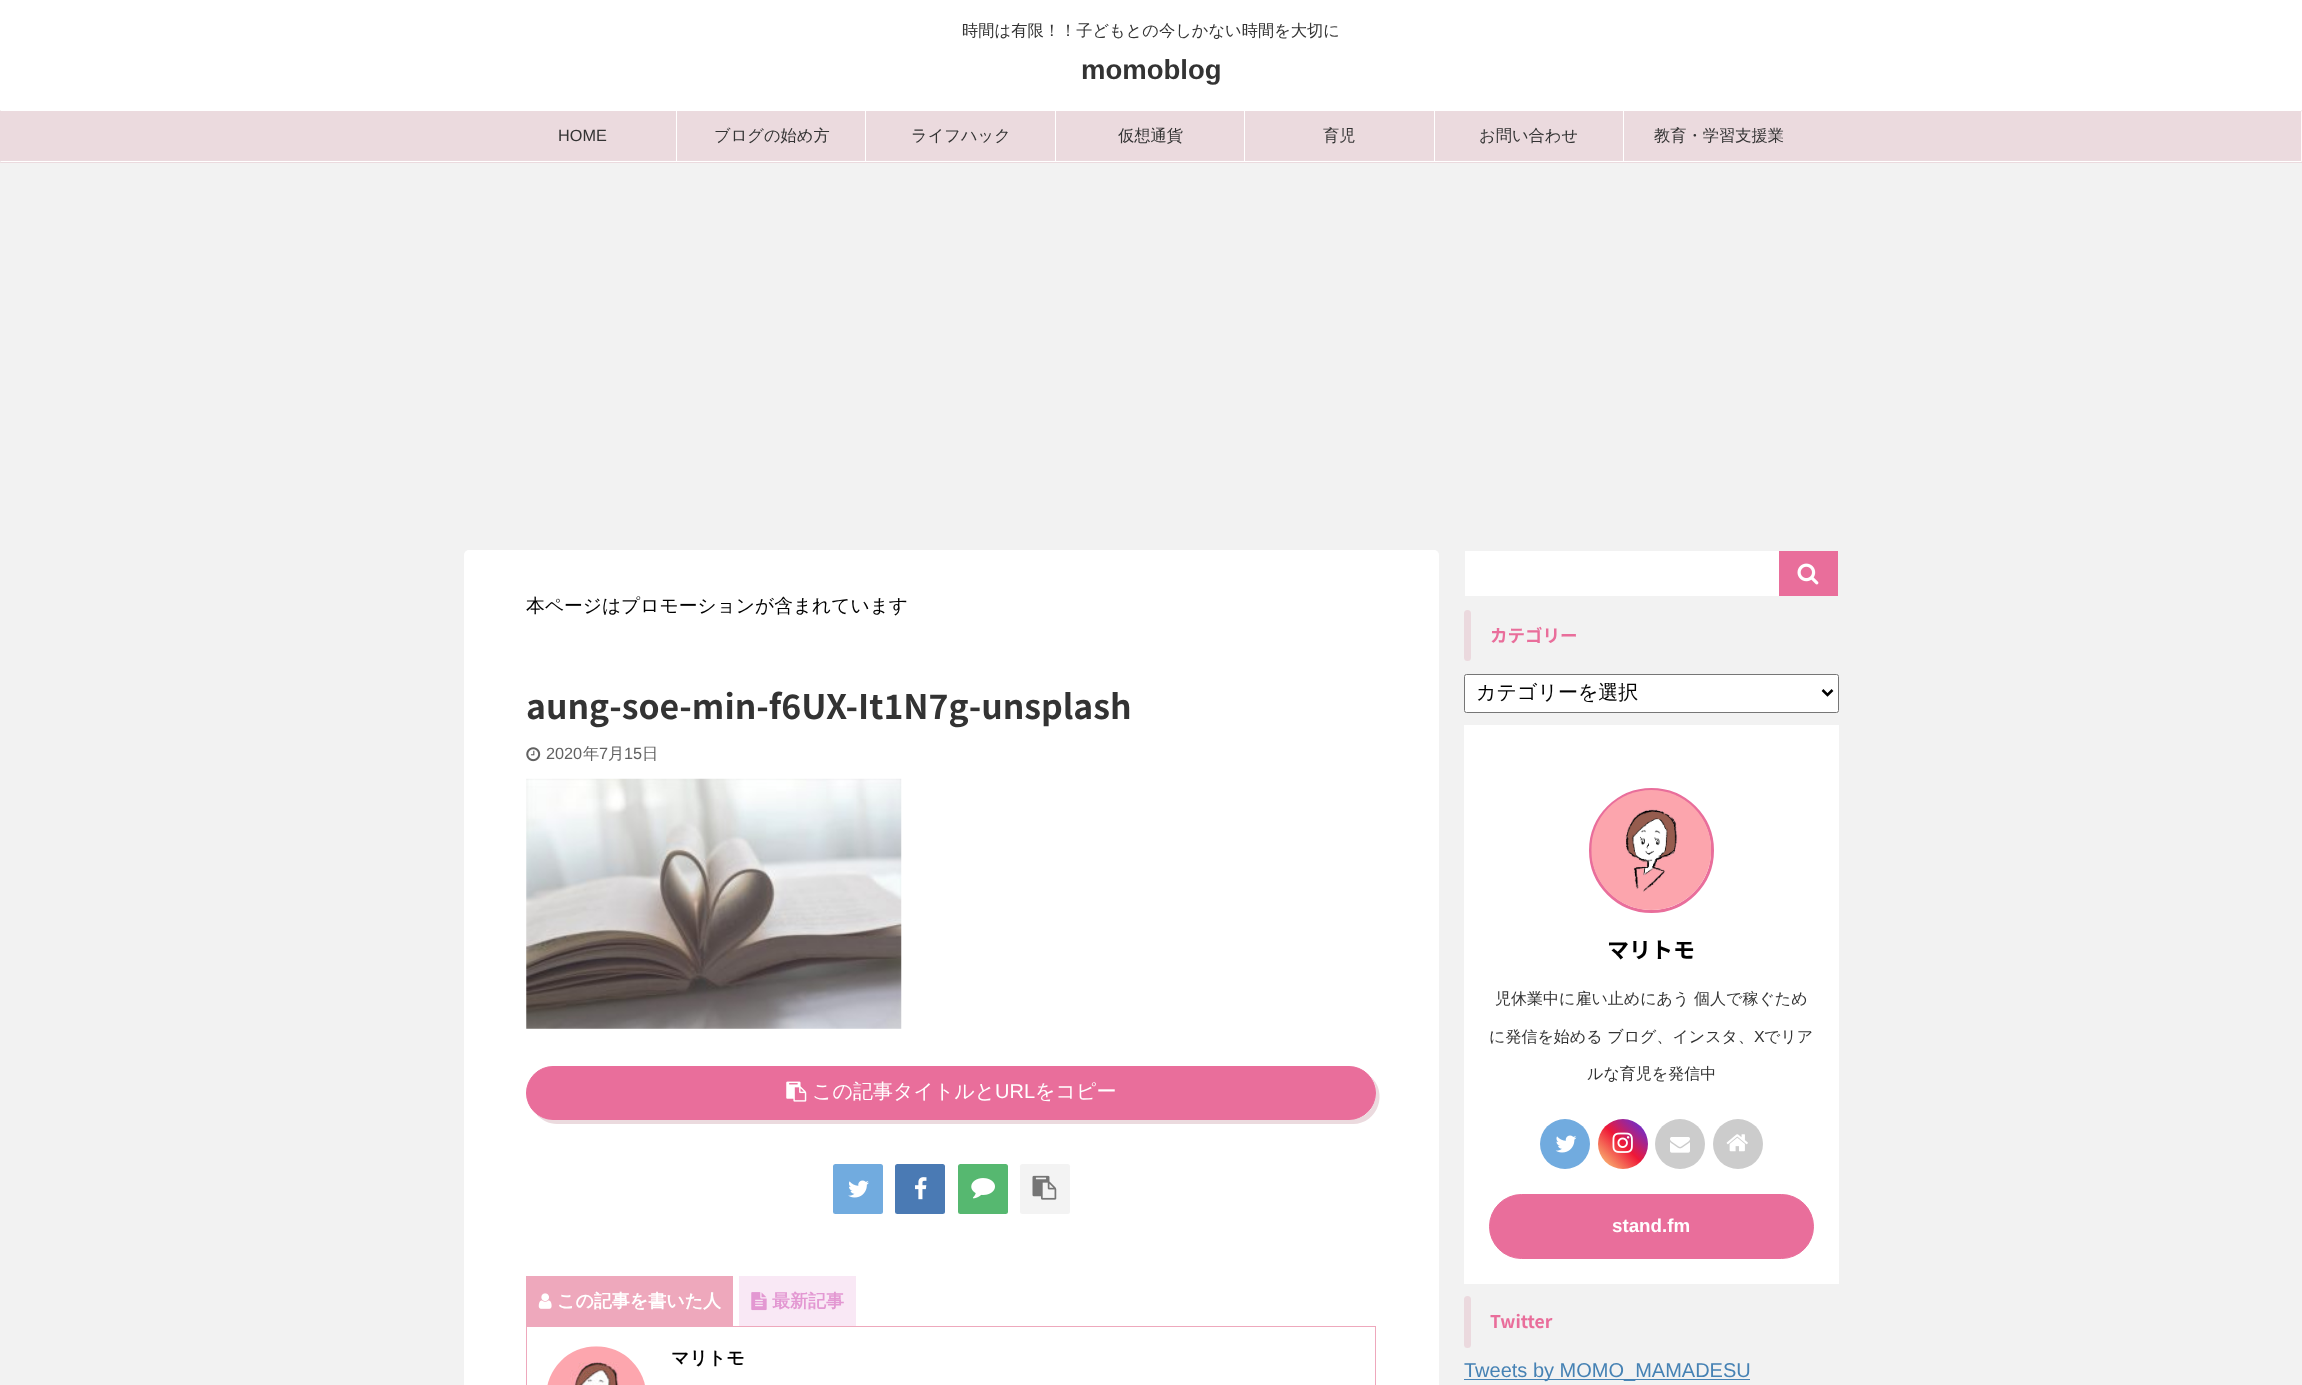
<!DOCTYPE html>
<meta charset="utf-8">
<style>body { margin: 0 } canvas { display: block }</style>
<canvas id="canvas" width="2302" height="1385"></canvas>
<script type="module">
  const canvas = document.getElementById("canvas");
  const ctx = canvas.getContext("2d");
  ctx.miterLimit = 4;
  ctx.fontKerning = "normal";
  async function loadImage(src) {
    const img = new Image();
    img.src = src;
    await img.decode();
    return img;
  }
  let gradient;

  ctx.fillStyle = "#f2f2f2";
  ctx.fillRect(0, 0, 2302, 1385);
  ctx.fillStyle = "#ffffff";
  ctx.fillRect(0, 0, 2302, 110);
  ctx.font = "500 16.25px WenQuanYi Zen Hei";
  ctx.fillStyle = "#333333";
  ctx.fillText("時間は有限！！子どもとの今しかない時間を大切に", 962, 36);
  ctx.font = "bold 27.5px Liberation Sans";
  ctx.fillText("momoblog", 1081, 79);
  ctx.fillStyle = "#ebdade";
  ctx.beginPath();
  ctx.roundRect(0, 110, 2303, 53, 1);
  ctx.fill();
  ctx.fillStyle = "#ffffff";
  ctx.beginPath();
  ctx.moveTo(1, 110);
  ctx.lineTo(0, 111);
  ctx.lineTo(2301, 111);
  ctx.lineTo(2301, 112);
  ctx.lineTo(2302, 111);
  ctx.lineTo(2301, 110);
  ctx.closePath();
  ctx.fill();
  ctx.fillStyle = "#fffafa";
  ctx.beginPath();
  ctx.moveTo(2301, 161);
  ctx.lineTo(2301, 112);
  ctx.lineTo(2302, 111);
  ctx.lineTo(2302, 162);
  ctx.closePath();
  ctx.fill();
  ctx.fillStyle = "#ffffff";
  ctx.beginPath();
  ctx.moveTo(2302, 162);
  ctx.lineTo(1, 162);
  ctx.lineTo(0, 161);
  ctx.lineTo(2301, 161);
  ctx.closePath();
  ctx.fill();
  ctx.fillRect(676, 111, 1, 50);
  ctx.font = "16.25px Liberation Sans";
  ctx.fillStyle = "#333333";
  ctx.fillText("HOME", 558, 141);
  ctx.fillStyle = "#ffffff";
  ctx.fillRect(865, 111, 1, 50);
  ctx.font = "500 16.25px WenQuanYi Zen Hei";
  ctx.fillStyle = "#333333";
  ctx.fillText("ブログの始め方", 714, 141);
  ctx.fillStyle = "#ffffff";
  ctx.fillRect(1055, 111, 1, 50);
  ctx.fillStyle = "#333333";
  ctx.fillText("ライフハック", 911, 141);
  ctx.fillStyle = "#ffffff";
  ctx.fillRect(1244, 111, 1, 50);
  ctx.fillStyle = "#333333";
  ctx.fillText("仮想通貨", 1118, 141);
  ctx.fillStyle = "#ffffff";
  ctx.fillRect(1434, 111, 1, 50);
  ctx.fillStyle = "#333333";
  ctx.fillText("育児", 1323, 141);
  ctx.fillStyle = "#ffffff";
  ctx.fillRect(1623, 111, 1, 50);
  ctx.fillStyle = "#333333";
  ctx.fillText("お問い合わせ", 1479, 141);
  ctx.fillText("教育・学習支援業", 1654, 141);
  ctx.fillStyle = "#ffffff";
  ctx.beginPath();
  ctx.roundRect(464, 550, 975, 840, 5);
  ctx.fill();
  ctx.font = "500 18.75px WenQuanYi Zen Hei";
  ctx.fillStyle = "#000000";
  ctx.fillText("本ページはプロモーションが含まれています", 526, 612);
  ctx.font = "bold 33.75px Noto Sans JP";
  ctx.fillStyle = "#333333";
  ctx.fillText("aung-soe-min-f6UX-It1N7g-unsplash", 526, 719);
  ctx.drawImage(await loadImage("img1.png"), 526, 747, 15, 15);
  ctx.font = "16.25px Liberation Sans";
  ctx.fillStyle = "#616161";
  ctx.fillText("2020", 546, 759);
  ctx.font = "500 16.25px WenQuanYi Zen Hei";
  ctx.fillText("年", 583, 759);
  ctx.font = "16.25px Liberation Sans";
  ctx.fillText("7", 599, 759);
  ctx.font = "500 16.25px WenQuanYi Zen Hei";
  ctx.fillText("月", 608, 759);
  ctx.font = "16.25px Liberation Sans";
  ctx.fillText("15", 624, 759);
  ctx.font = "500 16.25px WenQuanYi Zen Hei";
  ctx.fillText("日", 642, 759);
  ctx.drawImage(await loadImage("img2.png"), 526, 778, 376, 251);
  ctx.fillStyle = "#ebdade";
  ctx.beginPath();
  ctx.moveTo(536, 1114);
  ctx.bezierCurveTo(541, 1120, 549, 1124, 557, 1124);
  ctx.lineTo(1353, 1124);
  ctx.bezierCurveTo(1378, 1124, 1389, 1092, 1370, 1076);
  ctx.bezierCurveTo(1383, 1091, 1374, 1116, 1355, 1119);
  ctx.lineTo(1349, 1120);
  ctx.lineTo(551, 1120);
  ctx.bezierCurveTo(545, 1119, 540, 1117, 536, 1114);
  ctx.closePath();
  ctx.fill();
  ctx.fillStyle = "#e96e9b";
  ctx.beginPath();
  ctx.roundRect(526.5, 1066.5, 849, 53, 26.5);
  ctx.fill();
  ctx.strokeStyle = "#e96e9b";
  ctx.stroke();
  ctx.drawImage(await loadImage("img3.png"), 786, 1081, 21, 21);
  ctx.font = "500 20px WenQuanYi Zen Hei";
  ctx.fillStyle = "#ffffff";
  ctx.fillText("この記事タイトルと", 812, 1098);
  ctx.font = "20px Liberation Sans";
  ctx.fillText("URL", 995, 1098);
  ctx.font = "500 20px WenQuanYi Zen Hei";
  ctx.fillText("をコピー", 1035, 1098);
  ctx.fillStyle = "#71abdf";
  ctx.beginPath();
  ctx.roundRect(833, 1164, 50, 50, 2.5);
  ctx.fill();
  ctx.drawImage(await loadImage("img4.png"), 848, 1180, 21, 18);
  ctx.fillStyle = "#4a7ab4";
  ctx.beginPath();
  ctx.roundRect(895, 1164, 50, 50, 2.5);
  ctx.fill();
  ctx.drawImage(await loadImage("img5.png"), 915, 1177, 12, 23);
  ctx.fillStyle = "#56b870";
  ctx.beginPath();
  ctx.roundRect(958, 1164, 50, 50, 2.5);
  ctx.fill();
  ctx.drawImage(await loadImage("img6.png"), 971, 1178, 24, 21);
  ctx.fillStyle = "#f3f3f3";
  ctx.beginPath();
  ctx.roundRect(1020, 1164, 50, 50, 2.5);
  ctx.fill();
  ctx.drawImage(await loadImage("img7.png"), 1032, 1175, 25, 25);
  ctx.fillStyle = "#eea8bc";
  ctx.fillRect(526, 1276, 207, 50);
  ctx.drawImage(await loadImage("img8.png"), 538, 1293, 14, 16);
  ctx.font = "bold 18px WenQuanYi Zen Hei";
  ctx.fillStyle = "#ffffff";
  ctx.fillText("この記事を書いた人", 557, 1307);
  ctx.fillStyle = "#f9e8f5";
  ctx.fillRect(739, 1276, 117, 50);
  ctx.drawImage(await loadImage("img9.png"), 751, 1292, 16, 19);
  ctx.fillStyle = "#e398d2";
  ctx.fillText("最新記事", 772, 1307);
  ctx.strokeStyle = "#eea8bc";
  ctx.strokeRect(526.5, 1326.5, 849, 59);
  ctx.drawImage(await loadImage("img10.png"), 547, 1346, 98, 39);
  ctx.fillStyle = "#000000";
  ctx.fillText("マリトモ", 671, 1364);
  ctx.fillStyle = "#ffffff";
  ctx.fillRect(1465, 551, 314, 45);
  ctx.fillStyle = "#e96e9b";
  ctx.fillRect(1779, 551, 59, 45);
  ctx.drawImage(await loadImage("img11.png"), 1797, 563, 22, 22);
  ctx.fillStyle = "#ebd9de";
  ctx.beginPath();
  ctx.roundRect(1464, 610, 7, 51, 3.5);
  ctx.fill();
  ctx.font = "bold 17.5px Noto Sans JP";
  ctx.fillStyle = "#e96e9b";
  ctx.fillText("カテゴリー", 1490, 642);
  ctx.fillStyle = "#ffffff";
  ctx.beginPath();
  ctx.roundRect(1464.5, 674.5, 374, 38, 2);
  ctx.fill();
  ctx.strokeStyle = "#767676";
  ctx.stroke();
  ctx.beginPath();
  ctx.moveTo(1822.5, 690);
  ctx.lineTo(1827.5, 695);
  ctx.lineTo(1832.5, 690);
  ctx.strokeStyle = "#000000";
  ctx.lineWidth = 2.5;
  ctx.stroke();
  ctx.font = "500 20px WenQuanYi Zen Hei";
  ctx.fillStyle = "#000000";
  ctx.fillText("カテゴリーを選択", 1476, 699);
  ctx.fillStyle = "#ffffff";
  ctx.fillRect(1464, 725, 375, 559);
  ctx.beginPath();
  ctx.arc(1651.5, 850.5, 61, 0, Math.PI * 2);
  ctx.strokeStyle = "#e96e9b";
  ctx.lineWidth = 3;
  ctx.stroke();
  ctx.drawImage(await loadImage("img12.png"), 1591, 790, 120, 120);
  ctx.font = "bold 22px Noto Sans JP";
  ctx.fillStyle = "#000000";
  ctx.fillText("マリトモ", 1607, 958);
  ctx.font = "500 16px WenQuanYi Zen Hei";
  ctx.fillStyle = "#333333";
  ctx.fillText("児休業中に雇い止めにあう", 1495, 1004);
  ctx.fillText("個人で稼ぐため", 1694, 1004);
  ctx.fillText("に発信を始める ブログ、インスタ、", 1489, 1042);
  ctx.font = "16px Liberation Sans";
  ctx.fillText("X", 1754, 1042);
  ctx.font = "500 16px WenQuanYi Zen Hei";
  ctx.fillText("でリア", 1764, 1042);
  ctx.fillText("ルな育児を発信中", 1587, 1079);
  ctx.fillStyle = "#71abdf";
  ctx.beginPath();
  ctx.arc(1565, 1144, 25, 0, Math.PI * 2);
  ctx.fill();
  ctx.drawImage(await loadImage("img13.png"), 1555, 1135, 22, 18);
  gradient = ctx.createLinearGradient(1648, 1119, 1598, 1169);
  gradient.addColorStop(0, "#4933f7");
  gradient.addColorStop(0.5, "#ef1837");
  gradient.addColorStop(1, "#fbd980");
  ctx.fillStyle = gradient;
  ctx.beginPath();
  ctx.arc(1623, 1144, 25, 0, Math.PI * 2);
  ctx.fill();
  ctx.drawImage(await loadImage("img14.png"), 1612, 1132, 21, 21);
  ctx.fillStyle = "#cccccc";
  ctx.beginPath();
  ctx.arc(1680, 1144, 25, 0, Math.PI * 2);
  ctx.fill();
  ctx.drawImage(await loadImage("img15.png"), 1670, 1137, 20, 16);
  ctx.beginPath();
  ctx.arc(1738, 1144, 25, 0, Math.PI * 2);
  ctx.fill();
  ctx.drawImage(await loadImage("img16.png"), 1726, 1134, 22, 18);
  ctx.fillStyle = "#e96e9b";
  ctx.beginPath();
  ctx.roundRect(1489.5, 1194.5, 324, 64, 32);
  ctx.fill();
  ctx.lineWidth = 1;
  ctx.stroke();
  ctx.font = "bold 18.75px Liberation Sans";
  ctx.fillStyle = "#ffffff";
  ctx.fillText("stand.fm", 1612, 1232);
  ctx.fillStyle = "#ebd9de";
  ctx.beginPath();
  ctx.roundRect(1464, 1296, 7, 52, 3.5);
  ctx.fill();
  ctx.font = "bold 17.5px Noto Sans JP";
  ctx.fillStyle = "#e96e9b";
  ctx.fillText("Twitter", 1490, 1328);
  ctx.fillStyle = "#4682b4";
  ctx.fillRect(1464, 1379, 286, 1);
  ctx.font = "20px Liberation Sans";
  ctx.fillText("Tweets by MOMO_MAMADESU", 1464, 1377);
</script>
